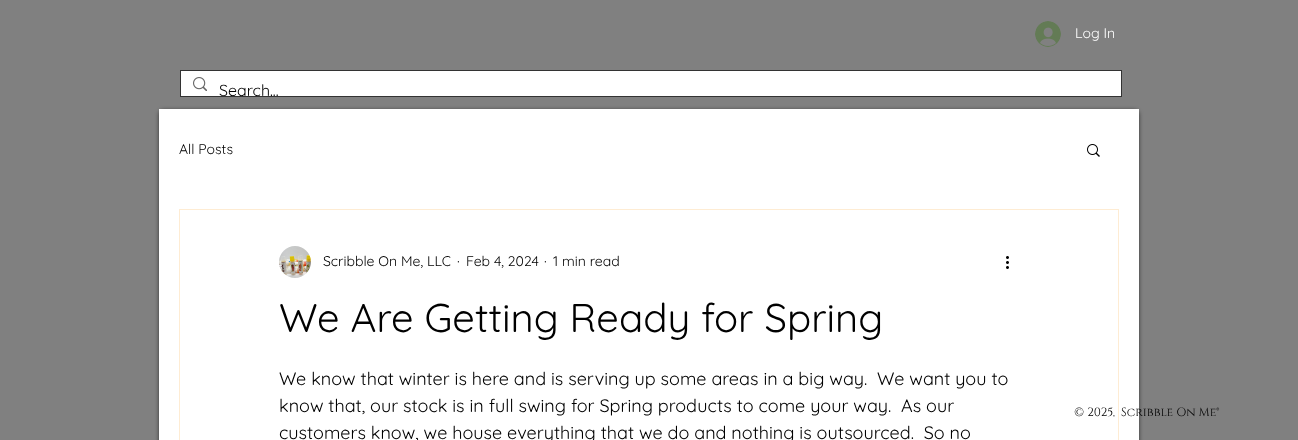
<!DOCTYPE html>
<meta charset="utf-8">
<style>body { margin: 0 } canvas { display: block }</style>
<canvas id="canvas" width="1298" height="440"></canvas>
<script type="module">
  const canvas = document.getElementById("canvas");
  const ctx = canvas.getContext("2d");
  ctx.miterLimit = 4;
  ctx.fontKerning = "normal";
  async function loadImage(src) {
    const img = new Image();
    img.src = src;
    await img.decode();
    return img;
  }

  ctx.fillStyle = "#808080";
  ctx.fillRect(0, 0, 1298, 440);
  ctx.drawImage(await loadImage("img1.png"), 1035, 21, 26, 26);
  ctx.font = "14px Quicksand";
  ctx.fillStyle = "#ffffff";
  ctx.fillText("Log In", 1075, 38);
  ctx.strokeStyle = "#333333";
  ctx.strokeRect(180.5, 70.5, 941, 26);
  ctx.fillRect(181, 71, 940, 25);
  ctx.drawImage(await loadImage("img2.png"), 193, 77, 14, 14);
  ctx.save();
  ctx.beginPath();
  ctx.rect(219, 80, 860, 16);
  ctx.clip();
  ctx.font = "16px Quicksand";
  ctx.fillStyle = "#000000";
  ctx.fillText("Search...", 219, 96);
  ctx.restore();
  ctx.fillStyle = "rgba(0, 0, 0, 0.6)";
  ctx.filter = "blur(2px)";
  ctx.beginPath();
  ctx.roundRect(159, 110, 980, 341, 5);
  ctx.fill();
  ctx.filter = "none";
  ctx.fillStyle = "#ffffff";
  ctx.fillRect(159, 109, 980, 331);
  ctx.fillStyle = "#000000";
  ctx.fillText("All Posts", 179, 154);
  ctx.drawImage(await loadImage("img3.png"), 1087, 144, 13, 13);
  ctx.strokeStyle = "#feecd3";
  ctx.strokeRect(179.5, 209.5, 939, 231);
  ctx.drawImage(await loadImage("img4.png"), 279, 246, 32, 32);
  ctx.fillText("Scribble On Me, LLC", 323, 266);
  ctx.fillText("·", 457, 266);
  ctx.fillText("Feb 4, 2024", 466, 266);
  ctx.fillText("·", 544, 266);
  ctx.fillText("1 min read", 553, 266);
  ctx.drawImage(await loadImage("img5.png"), 1006, 256, 3, 13);
  ctx.font = "40px Quicksand";
  ctx.fillText("We Are Getting Ready for Spring", 279, 332);
  ctx.font = "18px Quicksand";
  ctx.fillText("We know that winter is here and is serving up some areas in a big way.  We want you to", 279, 385);
  ctx.fillText("know that, our stock is in full swing for Spring products to come your way.  As our", 279, 412);
  ctx.fillText("customers know, we house everything that we do and nothing is outsourced.  So no", 279, 439);
  ctx.font = "12px Cinzel";
  ctx.fillText("© 2025,  Scribble On Me®", 1074, 416);
</script>
